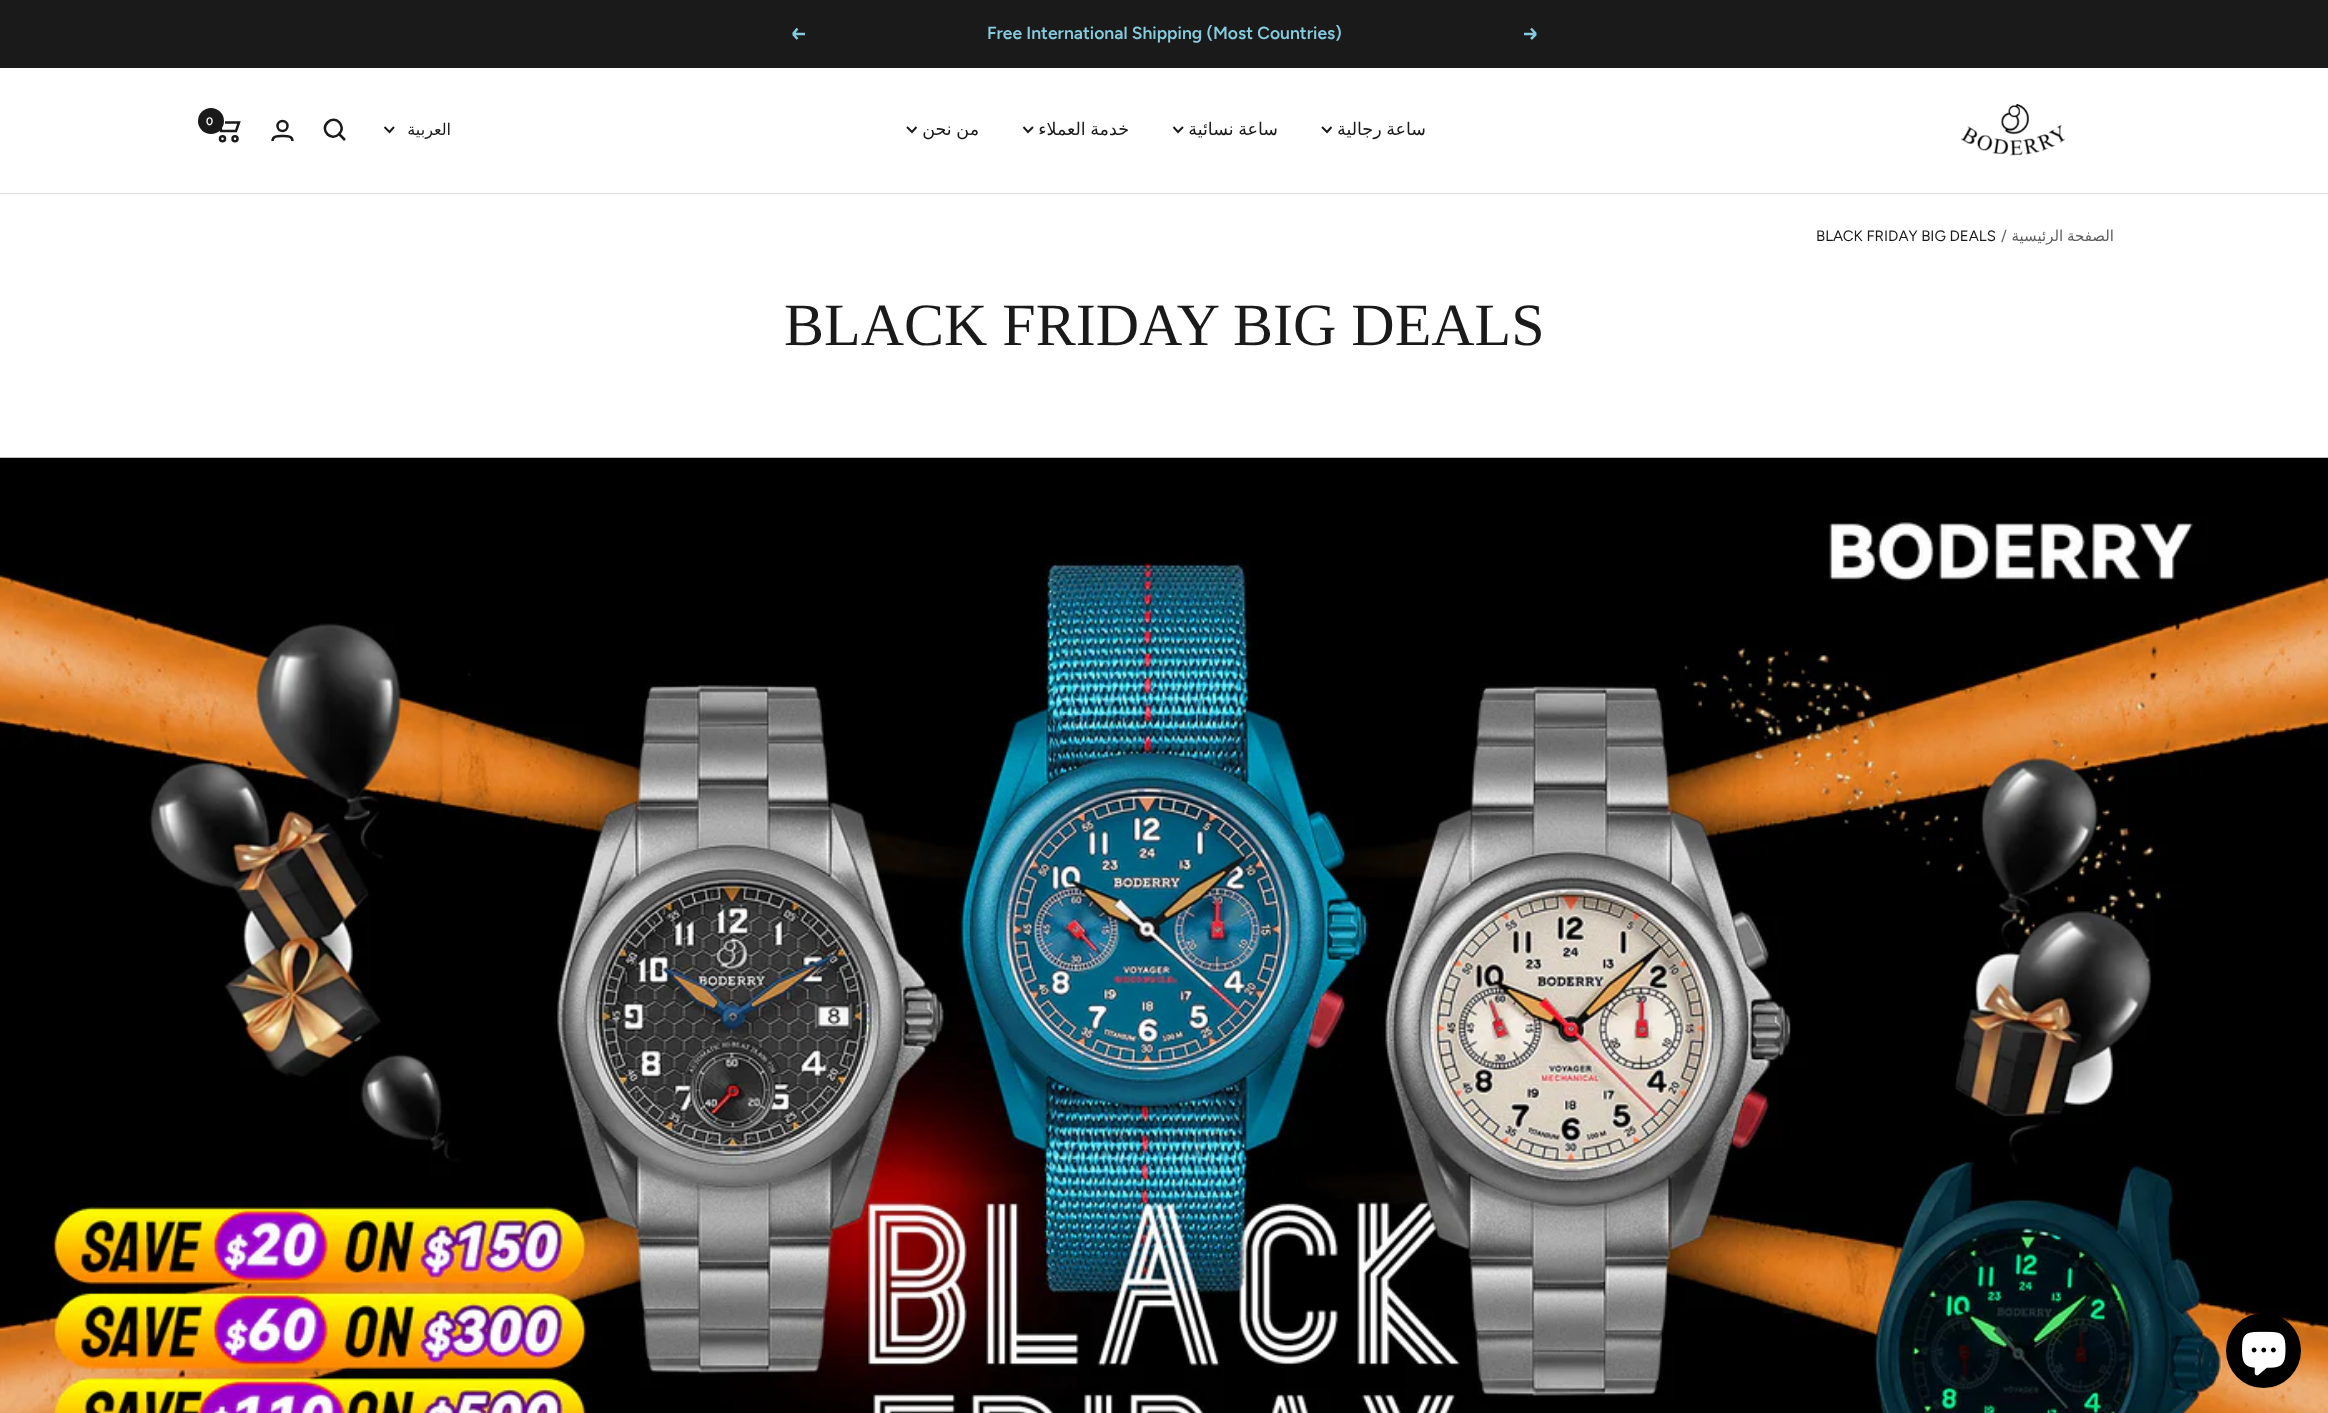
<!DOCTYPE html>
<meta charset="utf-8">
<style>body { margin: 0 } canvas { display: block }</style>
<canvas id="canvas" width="2328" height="1413"></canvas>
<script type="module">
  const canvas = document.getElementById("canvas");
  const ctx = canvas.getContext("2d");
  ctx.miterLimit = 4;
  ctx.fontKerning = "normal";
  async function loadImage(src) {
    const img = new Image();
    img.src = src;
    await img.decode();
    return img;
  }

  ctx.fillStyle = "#ffffff";
  ctx.fillRect(0, 0, 2328, 1413);
  ctx.fillStyle = "#1a1a1a";
  ctx.fillRect(0, 0, 2328, 68);
  ctx.beginPath();
  ctx.moveTo(805, 34);
  ctx.lineTo(793, 34);
  ctx.moveTo(793, 34);
  ctx.lineTo(797.5, 39);
  ctx.moveTo(793, 34);
  ctx.lineTo(797.5, 28.5);
  ctx.strokeStyle = "#87cbdf";
  ctx.lineWidth = 2.5;
  ctx.stroke();
  ctx.font = "600 17.5px Figtree";
  ctx.fillStyle = "#87cbdf";
  ctx.fillText("Free International Shipping (Most Countries)", 987, 39);
  ctx.beginPath();
  ctx.moveTo(1524, 34);
  ctx.lineTo(1536, 34);
  ctx.moveTo(1536, 34);
  ctx.lineTo(1531, 39);
  ctx.moveTo(1536, 34);
  ctx.lineTo(1531, 28.5);
  ctx.stroke();
  ctx.fillStyle = "#dddddd";
  ctx.beginPath();
  ctx.moveTo(0, 192);
  ctx.lineTo(0, 194);
  ctx.lineTo(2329, 194);
  ctx.lineTo(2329, 69);
  ctx.lineTo(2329, 192);
  ctx.closePath();
  ctx.fill();
  ctx.fillStyle = "#ffffff";
  ctx.fillRect(0, 192, 2328, 1);
  ctx.beginPath();
  ctx.moveTo(215, 119);
  ctx.lineTo(220, 119);
  ctx.lineTo(221, 131);
  ctx.lineTo(236, 131);
  ctx.lineTo(239, 122.5);
  ctx.lineTo(225, 122.5);
  ctx.strokeStyle = "#1a1a1a";
  ctx.stroke();
  ctx.fillStyle = "#1a1a1a";
  ctx.beginPath();
  ctx.arc(211, 121, 13, 0, Math.PI * 2);
  ctx.fill();
  ctx.font = "600 11px Figtree";
  ctx.fillStyle = "#ffffff";
  ctx.fillText("0", 206, 125);
  ctx.beginPath();
  ctx.arc(222.5, 138.8, 2.5, 0, Math.PI * 2);
  ctx.stroke();
  ctx.beginPath();
  ctx.arc(235, 138.8, 2.5, 0, Math.PI * 2);
  ctx.stroke();
  ctx.beginPath();
  ctx.arc(282.5, 126, 5, 0, Math.PI * 2);
  ctx.stroke();
  ctx.beginPath();
  ctx.moveTo(272.5, 141);
  ctx.bezierCurveTo(272.5, 135.5, 278.5, 136, 282.5, 136);
  ctx.bezierCurveTo(286.5, 136, 292.5, 135.5, 292.5, 141);
  ctx.stroke();
  ctx.beginPath();
  ctx.moveTo(339, 134);
  ctx.bezierCurveTo(347, 126.5, 335.5, 114.5, 327.5, 122.5);
  ctx.bezierCurveTo(319.5, 130.5, 331.5, 142, 339, 134);
  ctx.closePath();
  ctx.moveTo(339, 134);
  ctx.lineTo(345, 140);
  ctx.stroke();
  ctx.beginPath();
  ctx.moveTo(384.5, 127);
  ctx.lineTo(389.5, 132);
  ctx.lineTo(394, 127);
  ctx.lineWidth = 1.9;
  ctx.stroke();
  ctx.direction = "rtl";
  ctx.font = "16px DejaVu Sans";
  ctx.fillStyle = "#1a1a1a";
  ctx.fillText("العربية", 451, 135);
  ctx.beginPath();
  ctx.moveTo(907, 127);
  ctx.lineTo(912, 132);
  ctx.lineTo(916.5, 127);
  ctx.stroke();
  ctx.wordSpacing = "-1px";
  ctx.font = "17.5px DejaVu Sans";
  ctx.fillText("من نحن", 979, 135);
  ctx.beginPath();
  ctx.moveTo(1023.5, 127);
  ctx.lineTo(1028, 132);
  ctx.lineTo(1033, 127);
  ctx.stroke();
  ctx.fillText("خدمة العملاء", 1129, 135);
  ctx.beginPath();
  ctx.moveTo(1173.5, 127);
  ctx.lineTo(1178, 132);
  ctx.lineTo(1183, 127);
  ctx.stroke();
  ctx.fillText("ساعة نسائية", 1278, 135);
  ctx.beginPath();
  ctx.moveTo(1322, 127);
  ctx.lineTo(1327, 132);
  ctx.lineTo(1331.5, 127);
  ctx.stroke();
  ctx.fillText("ساعة رجالية", 1426, 135);
  ctx.drawImage(await loadImage("img1.png"), 1960, 103, 105, 53);
  ctx.wordSpacing = "0px";
  ctx.direction = "ltr";
  ctx.font = "15px Figtree";
  ctx.fillText("BLACK FRIDAY BIG DEALS", 1816, 241);
  ctx.fillStyle = "#5f5f5f";
  ctx.fillText("/", 2001, 241);
  ctx.wordSpacing = "-1px";
  ctx.direction = "rtl";
  ctx.font = "15px DejaVu Sans";
  ctx.fillText("الصفحة الرئيسية", 2114, 241);
  ctx.wordSpacing = "0px";
  ctx.direction = "ltr";
  ctx.font = "60px Liberation Serif";
  ctx.fillStyle = "#1a1a1a";
  ctx.fillText("BLACK FRIDAY BIG DEALS", 784, 345);
  ctx.drawImage(await loadImage("img2.png"), 0, 457, 2328, 956);
  ctx.fillStyle = "#000000";
  ctx.beginPath();
  ctx.arc(2263.5, 1350.5, 37.5, 0, Math.PI * 2);
  ctx.fill();
  ctx.drawImage(await loadImage("img3.png"), 2242, 1331, 44, 45);
</script>
